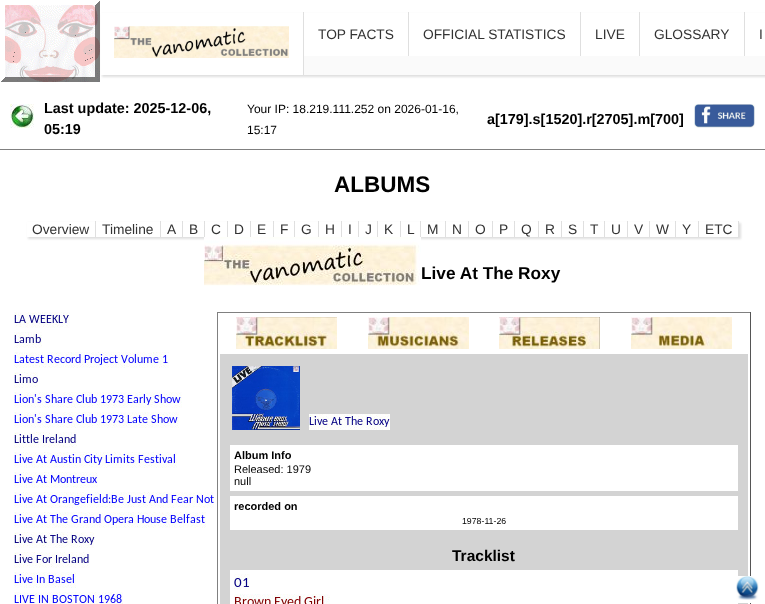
<!DOCTYPE html>
<meta charset="utf-8">
<style>body { margin: 0 } canvas { display: block }</style>
<canvas id="canvas" width="765" height="604"></canvas>
<script type="module">
  const canvas = document.getElementById("canvas");
  const ctx = canvas.getContext("2d");
  ctx.miterLimit = 4;
  ctx.fontKerning = "normal";
  async function loadImage(src) {
    const img = new Image();
    img.src = src;
    await img.decode();
    return img;
  }

  ctx.fillStyle = "#ffffff";
  ctx.fillRect(0, 0, 765, 604);
  ctx.drawImage(await loadImage("img1.png"), 1, 1, 99, 81);
  ctx.fillStyle = "#dfdfdf";
  ctx.filter = "blur(1px)";
  ctx.beginPath();
  ctx.rect(102, 14, 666, 63);
  ctx.fill();
  ctx.filter = "none";
  ctx.fillStyle = "#fafafa";
  ctx.fillRect(304, 56, 461, 19);
  ctx.fillStyle = "#dfdfdf";
  ctx.fillRect(303, 12, 1, 3);
  ctx.fillStyle = "#ffffff";
  ctx.fillRect(101, 13, 202, 62);
  ctx.drawImage(await loadImage("img2.png"), 114, 26, 175, 32);
  ctx.fillStyle = "#dfdfdf";
  ctx.fillRect(408, 12, 1, 3);
  ctx.fillStyle = "#ffffff";
  ctx.fillRect(304, 13, 104, 43);
  ctx.font = "13.75px Liberation Sans";
  ctx.fillStyle = "#333333";
  ctx.fillText("TOP FACTS", 318, 39);
  ctx.fillStyle = "#dfdfdf";
  ctx.fillRect(580, 12, 1, 3);
  ctx.fillStyle = "#ffffff";
  ctx.fillRect(409, 13, 171, 43);
  ctx.fillStyle = "#333333";
  ctx.fillText("OFFICIAL STATISTICS", 423, 39);
  ctx.fillStyle = "#dfdfdf";
  ctx.fillRect(639, 12, 1, 3);
  ctx.fillStyle = "#ffffff";
  ctx.fillRect(581, 13, 58, 43);
  ctx.fillStyle = "#333333";
  ctx.fillText("LIVE", 595, 39);
  ctx.fillStyle = "#dfdfdf";
  ctx.fillRect(744, 12, 1, 3);
  ctx.fillStyle = "#ffffff";
  ctx.fillRect(640, 13, 104, 43);
  ctx.fillStyle = "#333333";
  ctx.fillText("GLOSSARY", 654, 39);
  ctx.fillStyle = "#ffffff";
  ctx.fillRect(745, 13, 20, 43);
  ctx.fillStyle = "#333333";
  ctx.fillText("I", 759, 39);
  ctx.fillStyle = "#808080";
  ctx.fillRect(0, 149, 765, 1);
  ctx.drawImage(await loadImage("img3.png"), 10, 104, 24, 24);
  ctx.font = "bold 14.4px Liberation Sans";
  ctx.fillStyle = "#000000";
  ctx.fillText("Last update: 2025-12-06,", 44, 113);
  ctx.fillText("05:19", 44, 134);
  ctx.font = "12px Liberation Sans";
  ctx.fillText("Your IP: 18.219.111.252 on 2026-01-16,", 247, 113);
  ctx.fillText("15:17", 247, 134);
  ctx.font = "bold 14.4px Liberation Sans";
  ctx.fillText("a[179].s[1520].r[2705].m[700]", 487, 124);
  ctx.drawImage(await loadImage("img4.png"), 694, 104, 61, 24);
  ctx.font = "bold 22.5px Liberation Sans";
  ctx.fillText("ALBUMS", 334, 192);
  ctx.fillStyle = "#dfdfdf";
  ctx.filter = "blur(1px)";
  ctx.beginPath();
  ctx.rect(28, 223, 713, 16);
  ctx.fill();
  ctx.filter = "none";
  ctx.fillRect(95, 221, 1, 3);
  ctx.fillStyle = "#ffffff";
  ctx.fillRect(27, 222, 68, 15);
  ctx.font = "13.75px Liberation Sans";
  ctx.fillStyle = "#333333";
  ctx.fillText("Overview", 32, 234);
  ctx.fillStyle = "#dfdfdf";
  ctx.fillRect(160, 221, 1, 3);
  ctx.fillStyle = "#ffffff";
  ctx.fillRect(96, 222, 64, 15);
  ctx.fillStyle = "#333333";
  ctx.fillText("Timeline", 102, 234);
  ctx.fillStyle = "#dfdfdf";
  ctx.fillRect(182, 221, 1, 3);
  ctx.fillStyle = "#ffffff";
  ctx.fillRect(161, 222, 21, 15);
  ctx.fillStyle = "#333333";
  ctx.fillText("A", 167, 234);
  ctx.fillStyle = "#dfdfdf";
  ctx.fillRect(204, 221, 1, 3);
  ctx.fillStyle = "#ffffff";
  ctx.fillRect(183, 222, 21, 15);
  ctx.fillStyle = "#333333";
  ctx.fillText("B", 189, 234);
  ctx.fillStyle = "#dfdfdf";
  ctx.fillRect(227, 221, 1, 3);
  ctx.fillStyle = "#ffffff";
  ctx.fillRect(205, 222, 22, 15);
  ctx.fillStyle = "#333333";
  ctx.fillText("C", 211, 234);
  ctx.fillStyle = "#dfdfdf";
  ctx.fillRect(250, 221, 1, 3);
  ctx.fillStyle = "#ffffff";
  ctx.fillRect(228, 222, 22, 15);
  ctx.fillStyle = "#333333";
  ctx.fillText("D", 234, 234);
  ctx.fillStyle = "#dfdfdf";
  ctx.fillRect(273, 221, 1, 3);
  ctx.fillStyle = "#ffffff";
  ctx.fillRect(251, 222, 22, 15);
  ctx.fillStyle = "#333333";
  ctx.fillText("E", 257, 234);
  ctx.fillStyle = "#dfdfdf";
  ctx.fillRect(294, 221, 1, 3);
  ctx.fillStyle = "#ffffff";
  ctx.fillRect(274, 222, 20, 15);
  ctx.fillStyle = "#333333";
  ctx.fillText("F", 280, 234);
  ctx.fillStyle = "#dfdfdf";
  ctx.fillRect(318, 221, 1, 3);
  ctx.fillStyle = "#ffffff";
  ctx.fillRect(295, 222, 23, 15);
  ctx.fillStyle = "#333333";
  ctx.fillText("G", 301, 234);
  ctx.fillStyle = "#dfdfdf";
  ctx.fillRect(341, 221, 1, 3);
  ctx.fillStyle = "#ffffff";
  ctx.fillRect(319, 222, 22, 15);
  ctx.fillStyle = "#333333";
  ctx.fillText("H", 325, 234);
  ctx.fillStyle = "#dfdfdf";
  ctx.fillRect(358, 221, 1, 3);
  ctx.fillStyle = "#ffffff";
  ctx.fillRect(342, 222, 16, 15);
  ctx.fillStyle = "#333333";
  ctx.fillText("I", 348, 234);
  ctx.fillStyle = "#dfdfdf";
  ctx.fillRect(377, 221, 1, 3);
  ctx.fillStyle = "#ffffff";
  ctx.fillRect(359, 222, 18, 15);
  ctx.fillStyle = "#333333";
  ctx.fillText("J", 365, 234);
  ctx.fillStyle = "#dfdfdf";
  ctx.fillRect(400, 221, 1, 3);
  ctx.fillStyle = "#ffffff";
  ctx.fillRect(378, 222, 22, 15);
  ctx.fillStyle = "#333333";
  ctx.fillText("K", 384, 234);
  ctx.fillStyle = "#dfdfdf";
  ctx.fillRect(420, 221, 1, 3);
  ctx.fillStyle = "#ffffff";
  ctx.fillRect(401, 222, 19, 15);
  ctx.fillStyle = "#333333";
  ctx.fillText("L", 407, 234);
  ctx.fillStyle = "#dfdfdf";
  ctx.fillRect(445, 221, 1, 3);
  ctx.fillStyle = "#ffffff";
  ctx.fillRect(421, 222, 24, 15);
  ctx.fillStyle = "#333333";
  ctx.fillText("M", 427, 234);
  ctx.fillStyle = "#dfdfdf";
  ctx.fillRect(468, 221, 1, 3);
  ctx.fillStyle = "#ffffff";
  ctx.fillRect(446, 222, 22, 15);
  ctx.fillStyle = "#333333";
  ctx.fillText("N", 452, 234);
  ctx.fillStyle = "#dfdfdf";
  ctx.fillRect(492, 221, 1, 3);
  ctx.fillStyle = "#ffffff";
  ctx.fillRect(469, 222, 23, 15);
  ctx.fillStyle = "#333333";
  ctx.fillText("O", 475, 234);
  ctx.fillStyle = "#dfdfdf";
  ctx.fillRect(514, 221, 1, 3);
  ctx.fillStyle = "#ffffff";
  ctx.fillRect(493, 222, 21, 15);
  ctx.fillStyle = "#333333";
  ctx.fillText("P", 499, 234);
  ctx.fillStyle = "#dfdfdf";
  ctx.fillRect(538, 221, 1, 3);
  ctx.fillStyle = "#ffffff";
  ctx.fillRect(515, 222, 23, 15);
  ctx.fillStyle = "#333333";
  ctx.fillText("Q", 521, 234);
  ctx.fillStyle = "#dfdfdf";
  ctx.fillRect(561, 221, 1, 3);
  ctx.fillStyle = "#ffffff";
  ctx.fillRect(539, 222, 22, 15);
  ctx.fillStyle = "#333333";
  ctx.fillText("R", 545, 234);
  ctx.fillStyle = "#dfdfdf";
  ctx.fillRect(583, 221, 1, 3);
  ctx.fillStyle = "#ffffff";
  ctx.fillRect(562, 222, 21, 15);
  ctx.fillStyle = "#333333";
  ctx.fillText("S", 568, 234);
  ctx.fillStyle = "#dfdfdf";
  ctx.fillRect(604, 221, 1, 3);
  ctx.fillStyle = "#ffffff";
  ctx.fillRect(584, 222, 20, 15);
  ctx.fillStyle = "#333333";
  ctx.fillText("T", 590, 234);
  ctx.fillStyle = "#dfdfdf";
  ctx.fillRect(627, 221, 1, 3);
  ctx.fillStyle = "#ffffff";
  ctx.fillRect(605, 222, 22, 15);
  ctx.fillStyle = "#333333";
  ctx.fillText("U", 611, 234);
  ctx.fillStyle = "#dfdfdf";
  ctx.fillRect(649, 221, 1, 3);
  ctx.fillStyle = "#ffffff";
  ctx.fillRect(628, 222, 21, 15);
  ctx.fillStyle = "#333333";
  ctx.fillText("V", 634, 234);
  ctx.fillStyle = "#dfdfdf";
  ctx.fillRect(675, 221, 1, 3);
  ctx.fillStyle = "#ffffff";
  ctx.fillRect(650, 222, 25, 15);
  ctx.fillStyle = "#333333";
  ctx.fillText("W", 656, 234);
  ctx.fillStyle = "#dfdfdf";
  ctx.fillRect(698, 221, 1, 3);
  ctx.fillStyle = "#ffffff";
  ctx.fillRect(676, 222, 22, 15);
  ctx.fillStyle = "#333333";
  ctx.fillText("Y", 682, 234);
  ctx.fillStyle = "#dfdfdf";
  ctx.fillRect(738, 221, 1, 3);
  ctx.fillStyle = "#ffffff";
  ctx.fillRect(699, 222, 39, 15);
  ctx.fillStyle = "#333333";
  ctx.fillText("ETC", 705, 234);
  ctx.drawImage(await loadImage("img5.png"), 204, 237, 217, 49);
  ctx.font = "bold 17.25px Liberation Sans";
  ctx.fillStyle = "#000000";
  ctx.fillText("Live At The Roxy", 421, 279);
  ctx.drawImage(await loadImage("img6.png"), 14, 312, 56, 16);
  ctx.drawImage(await loadImage("img7.png"), 14, 332, 28, 16);
  ctx.drawImage(await loadImage("img8.png"), 14, 352, 155, 16);
  ctx.drawImage(await loadImage("img9.png"), 14, 372, 24, 16);
  ctx.drawImage(await loadImage("img10.png"), 14, 392, 168, 16);
  ctx.drawImage(await loadImage("img11.png"), 14, 412, 165, 16);
  ctx.drawImage(await loadImage("img12.png"), 14, 432, 63, 16);
  ctx.drawImage(await loadImage("img13.png"), 14, 452, 163, 16);
  ctx.drawImage(await loadImage("img14.png"), 14, 472, 84, 16);
  ctx.drawImage(await loadImage("img15.png"), 14, 492, 200, 16);
  ctx.drawImage(await loadImage("img16.png"), 14, 512, 192, 16);
  ctx.drawImage(await loadImage("img17.png"), 14, 532, 81, 16);
  ctx.drawImage(await loadImage("img18.png"), 14, 552, 76, 16);
  ctx.drawImage(await loadImage("img19.png"), 14, 572, 62, 16);
  ctx.drawImage(await loadImage("img20.png"), 14, 592, 109, 12);
  ctx.fillStyle = "#808080";
  ctx.fillRect(217, 312, 534, 1);
  ctx.fillStyle = "#555555";
  ctx.fillRect(750, 312, 1, 292);
  ctx.fillStyle = "#808080";
  ctx.fillRect(217, 312, 1, 292);
  ctx.drawImage(await loadImage("img21.png"), 236, 317, 101, 32);
  ctx.drawImage(await loadImage("img22.png"), 368, 317, 101, 32);
  ctx.drawImage(await loadImage("img23.png"), 499, 317, 101, 32);
  ctx.drawImage(await loadImage("img24.png"), 631, 317, 101, 32);
  ctx.fillStyle = "#d3d3d3";
  ctx.fillRect(220, 354, 528, 250);
  ctx.drawImage(await loadImage("img25.png"), 232, 366, 68, 64);
  ctx.drawImage(await loadImage("img17.png"), 309, 414, 81, 16);
  ctx.fillStyle = "#ffffff";
  ctx.fillRect(230, 445, 508, 46);
  ctx.font = "bold 11px Liberation Sans";
  ctx.fillStyle = "#000000";
  ctx.fillText("Album Info", 234, 459);
  ctx.font = "11px Liberation Sans";
  ctx.fillText("Released: 1979", 234, 473);
  ctx.fillText("null", 234, 485);
  ctx.fillStyle = "#ffffff";
  ctx.fillRect(230, 496, 508, 34);
  ctx.font = "bold 11px Liberation Sans";
  ctx.fillStyle = "#000000";
  ctx.fillText("recorded on", 234, 510);
  ctx.font = "8.75px Liberation Sans";
  ctx.fillText("1978-11-26", 462, 524);
  ctx.font = "bold 15.5px Liberation Sans";
  ctx.fillText("Tracklist", 452, 561);
  ctx.fillStyle = "#ffffff";
  ctx.fillRect(230, 570, 508, 34);
  ctx.drawImage(await loadImage("img26.png"), 234, 574, 16, 16);
  ctx.drawImage(await loadImage("img27.png"), 234, 594, 96, 10);
  ctx.fillRect(738, 589, 13, 14);
  ctx.drawImage(await loadImage("img28.png"), 736, 576, 23, 24);
</script>
